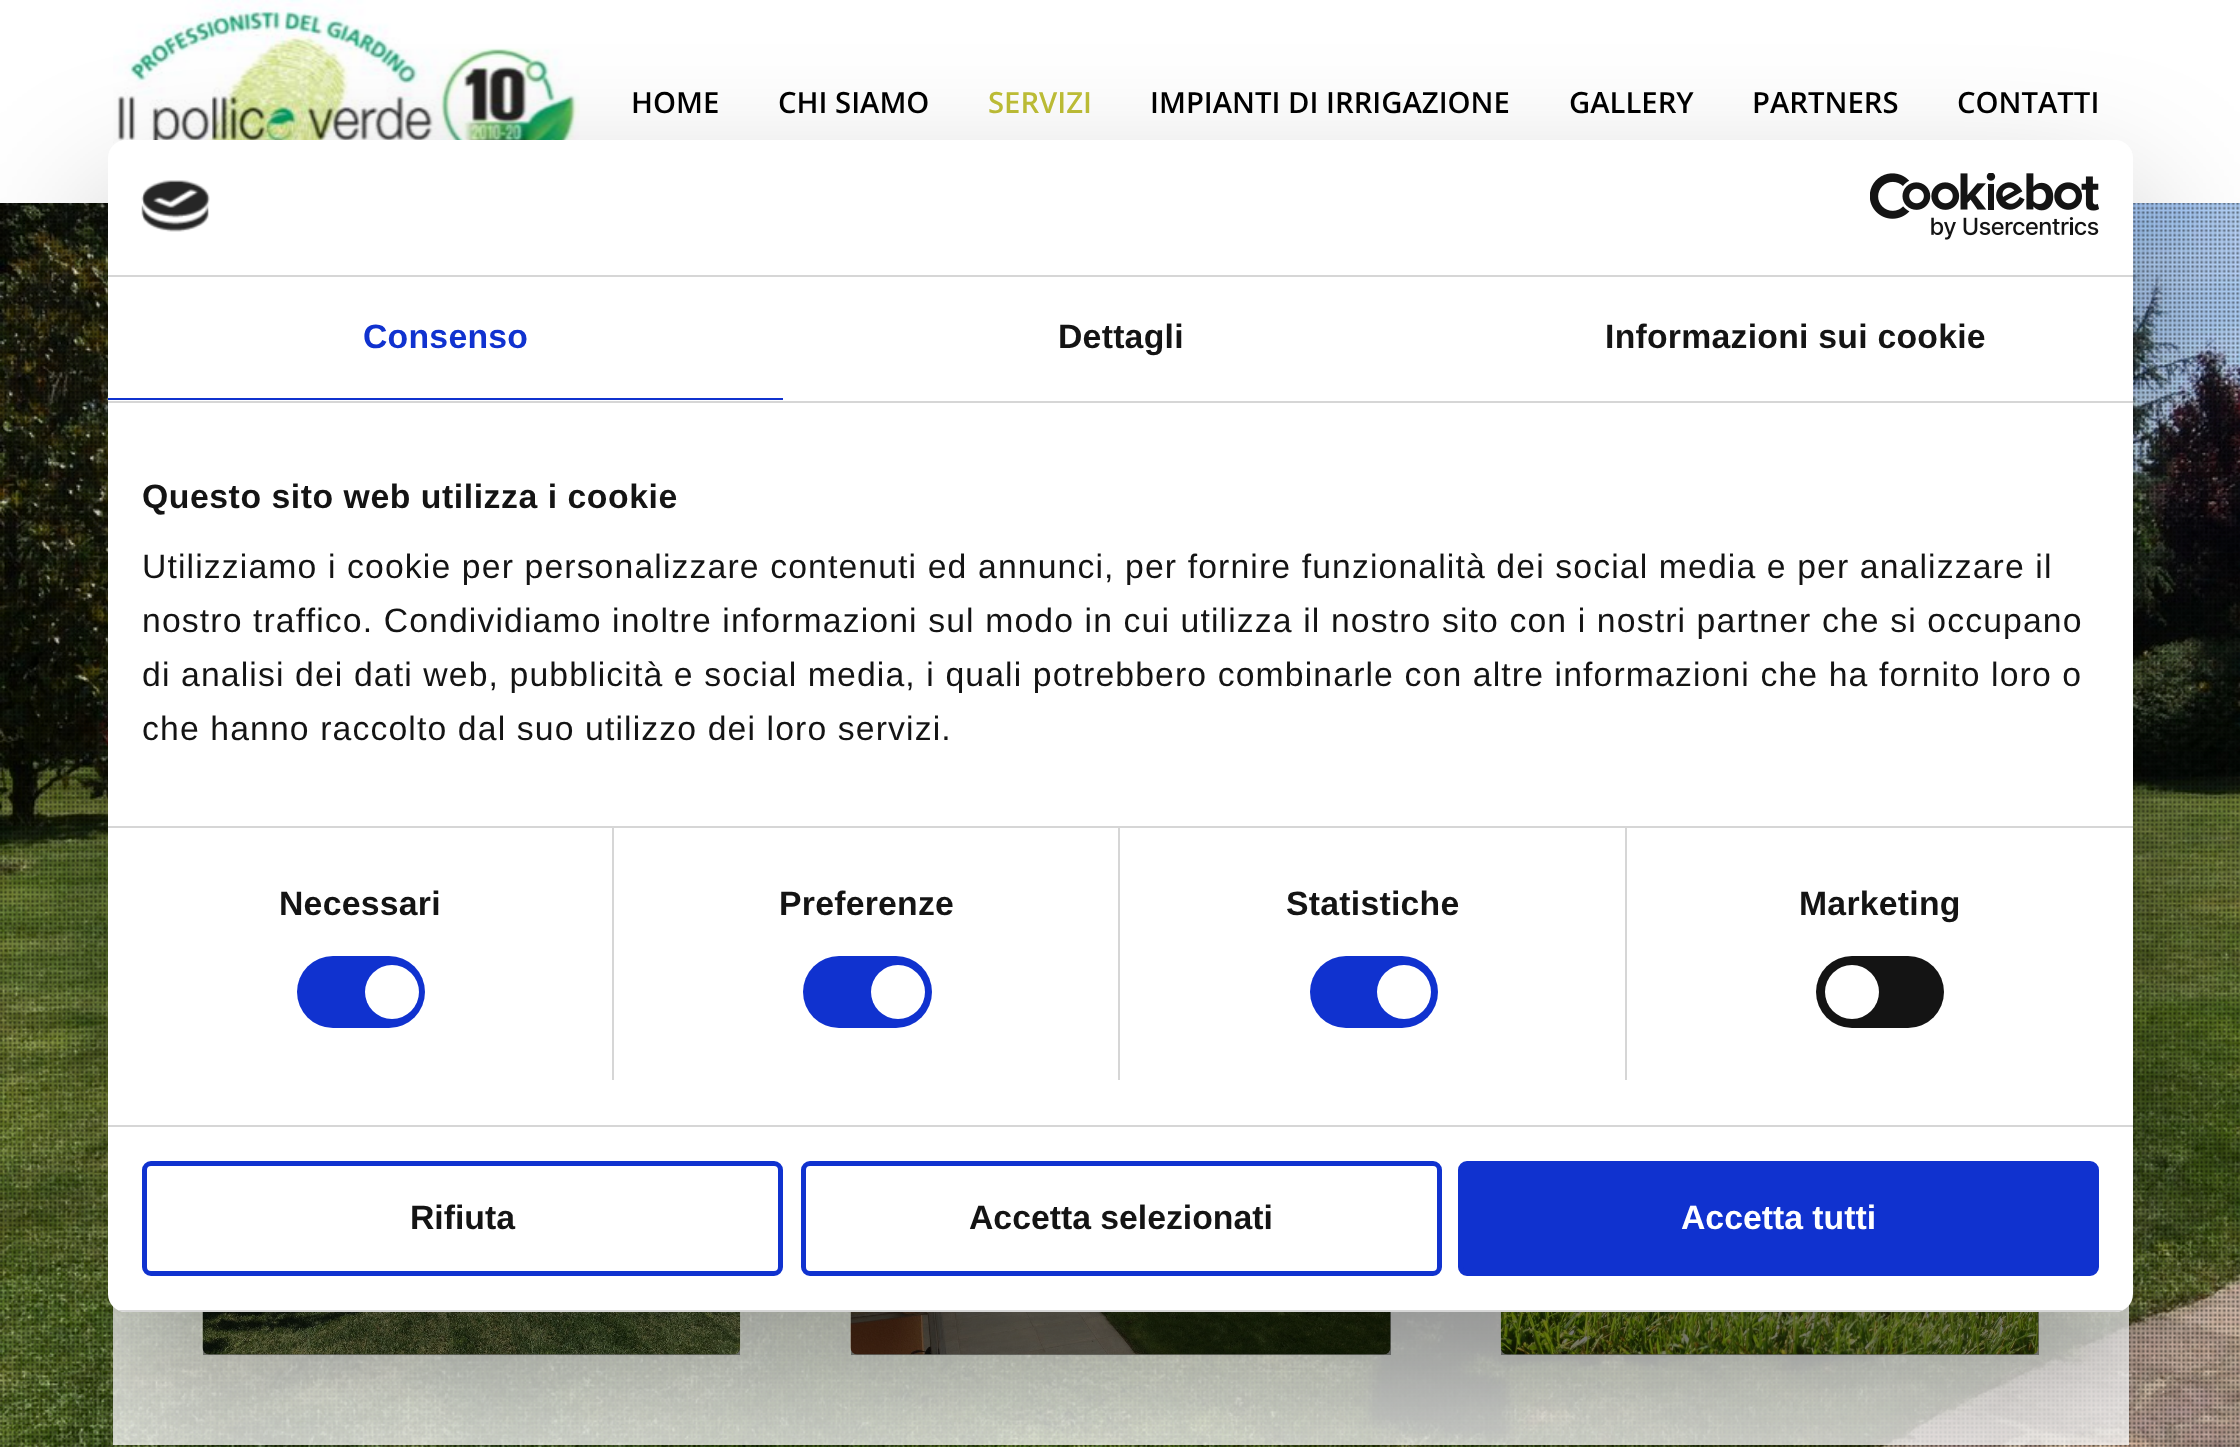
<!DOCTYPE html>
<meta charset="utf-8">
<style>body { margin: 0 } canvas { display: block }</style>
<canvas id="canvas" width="2240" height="1447"></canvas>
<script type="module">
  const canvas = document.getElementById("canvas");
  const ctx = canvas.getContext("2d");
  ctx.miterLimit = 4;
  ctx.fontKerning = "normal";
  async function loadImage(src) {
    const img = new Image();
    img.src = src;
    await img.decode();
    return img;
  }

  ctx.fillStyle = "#ffffff";
  ctx.fillRect(0, 0, 2240, 1447);
  ctx.drawImage(await loadImage("img1.png"), 113, 0, 467, 146);
  ctx.font = "600 29.25px Open Sans";
  ctx.fillStyle = "#000000";
  ctx.fillText("HOME", 631, 113);
  ctx.fillText("CHI SIAMO", 778, 113);
  ctx.fillStyle = "#bfbf37";
  ctx.fillText("SERVIZI", 988, 113);
  ctx.fillStyle = "#000000";
  ctx.fillText("IMPIANTI DI IRRIGAZIONE", 1150, 113);
  ctx.fillText("GALLERY", 1569, 113);
  ctx.fillText("PARTNERS", 1752, 113);
  ctx.fillText("CONTATTI", 1957, 113);
  ctx.drawImage(await loadImage("img2.png"), 0, 203, 2240, 1244);
  ctx.drawImage(await loadImage("img3.png"), 0, 203, 2240, 1244);
  ctx.fillStyle = "rgba(255, 255, 255, 0.8)";
  ctx.fillRect(113, 1305, 2016, 140);
  ctx.drawImage(await loadImage("img4.png"), 202, 1312, 539, 43);
  ctx.fillStyle = "rgba(0, 0, 0, 0.4)";
  ctx.fillRect(203, 1312, 537, 43);
  ctx.drawImage(await loadImage("img5.png"), 850, 1312, 541, 43);
  ctx.fillRect(851, 1312, 540, 43);
  ctx.drawImage(await loadImage("img6.png"), 1500, 1312, 539, 43);
  ctx.fillRect(1501, 1312, 538, 43);
  ctx.fillStyle = "rgba(0, 0, 0, 0.3)";
  ctx.filter = "blur(76.5px)";
  ctx.beginPath();
  ctx.roundRect(108, 212, 2025, 1172, 18);
  ctx.fill();
  ctx.filter = "none";
  ctx.fillStyle = "#ffffff";
  ctx.beginPath();
  ctx.roundRect(108, 140, 2025, 1172, 18);
  ctx.fill();
  ctx.fillStyle = "#d6d6d6";
  ctx.fillRect(108, 275, 2025, 2);
  ctx.drawImage(await loadImage("img7.png"), 141, 180, 69, 52);
  ctx.drawImage(await loadImage("img8.png"), 1870, 173, 229, 67);
  ctx.fillRect(108, 401, 2025, 2);
  ctx.fillStyle = "#1032cf";
  ctx.fillRect(108, 398, 675, 2);
  ctx.letterSpacing = "0.25px";
  ctx.font = "bold 33.75px Liberation Sans";
  ctx.fillText("Consenso", 363, 348);
  ctx.fillStyle = "#141414";
  ctx.fillText("Dettagli", 1058, 348);
  ctx.fillText("Informazioni sui cookie", 1605, 348);
  ctx.fillStyle = "#d6d6d6";
  ctx.fillRect(108, 826, 2025, 2);
  ctx.letterSpacing = "0.55px";
  ctx.fillStyle = "#141414";
  ctx.fillText("Questo sito web utilizza i cookie", 142, 508);
  ctx.letterSpacing = "1.12px";
  ctx.font = "33.75px Liberation Sans";
  ctx.fillText("Utilizziamo i cookie per personalizzare contenuti ed annunci, per fornire funzionalità dei social media e per analizzare il", 142, 578);
  ctx.fillText("nostro traffico. Condividiamo inoltre informazioni sul modo in cui utilizza il nostro sito con i nostri partner che si occupano", 142, 632);
  ctx.fillText("di analisi dei dati web, pubblicità e social media, i quali potrebbero combinarle con altre informazioni che ha fornito loro o", 142, 686);
  ctx.fillText("che hanno raccolto dal suo utilizzo dei loro servizi.", 142, 740);
  ctx.fillStyle = "#d6d6d6";
  ctx.fillRect(108, 1125, 2025, 2);
  ctx.fillRect(612, 828, 2, 252);
  ctx.letterSpacing = "0.25px";
  ctx.font = "bold 33.75px Liberation Sans";
  ctx.fillStyle = "#141414";
  ctx.fillText("Necessari", 279, 915);
  ctx.fillStyle = "#1032cf";
  ctx.beginPath();
  ctx.roundRect(297, 956, 128, 72, 36);
  ctx.fill();
  ctx.fillStyle = "#ffffff";
  ctx.beginPath();
  ctx.arc(392, 992, 27, 0, Math.PI * 2);
  ctx.fill();
  ctx.fillStyle = "#d6d6d6";
  ctx.fillRect(1118, 828, 2, 252);
  ctx.fillStyle = "#141414";
  ctx.fillText("Preferenze", 779, 915);
  ctx.fillStyle = "#1032cf";
  ctx.beginPath();
  ctx.roundRect(803, 956, 129, 72, 36);
  ctx.fill();
  ctx.fillStyle = "#ffffff";
  ctx.beginPath();
  ctx.arc(898, 992, 27, 0, Math.PI * 2);
  ctx.fill();
  ctx.fillStyle = "#d6d6d6";
  ctx.fillRect(1625, 828, 2, 252);
  ctx.fillStyle = "#141414";
  ctx.fillText("Statistiche", 1286, 915);
  ctx.fillStyle = "#1032cf";
  ctx.beginPath();
  ctx.roundRect(1310, 956, 128, 72, 36);
  ctx.fill();
  ctx.fillStyle = "#ffffff";
  ctx.beginPath();
  ctx.arc(1404, 992, 27, 0, Math.PI * 2);
  ctx.fill();
  ctx.fillStyle = "#141414";
  ctx.fillText("Marketing", 1799, 915);
  ctx.beginPath();
  ctx.roundRect(1816, 956, 128, 72, 36);
  ctx.fill();
  ctx.fillStyle = "#ffffff";
  ctx.beginPath();
  ctx.arc(1852, 992, 27, 0, Math.PI * 2);
  ctx.fill();
  ctx.save();
  ctx.beginPath();
  ctx.roundRect(108, 140, 2025, 1172, 18);
  ctx.clip();
  ctx.fillStyle = "#d6d6d6";
  ctx.fillRect(118, 1310, 2005, 2);
  ctx.restore();
  ctx.beginPath();
  ctx.roundRect(144.5, 1163.5, 636, 110, 6.5);
  ctx.strokeStyle = "#1032cf";
  ctx.lineWidth = 5;
  ctx.stroke();
  ctx.letterSpacing = "0px";
  ctx.fillStyle = "#141414";
  ctx.fillText("Rifiuta", 410, 1229);
  ctx.beginPath();
  ctx.roundRect(803.5, 1163.5, 636, 110, 6.5);
  ctx.stroke();
  ctx.fillText("Accetta selezionati", 969, 1229);
  ctx.fillStyle = "#1032cf";
  ctx.beginPath();
  ctx.roundRect(1460.5, 1163.5, 636, 110, 6.5);
  ctx.fill();
  ctx.stroke();
  ctx.fillStyle = "#ffffff";
  ctx.fillText("Accetta tutti", 1681, 1229);
</script>
